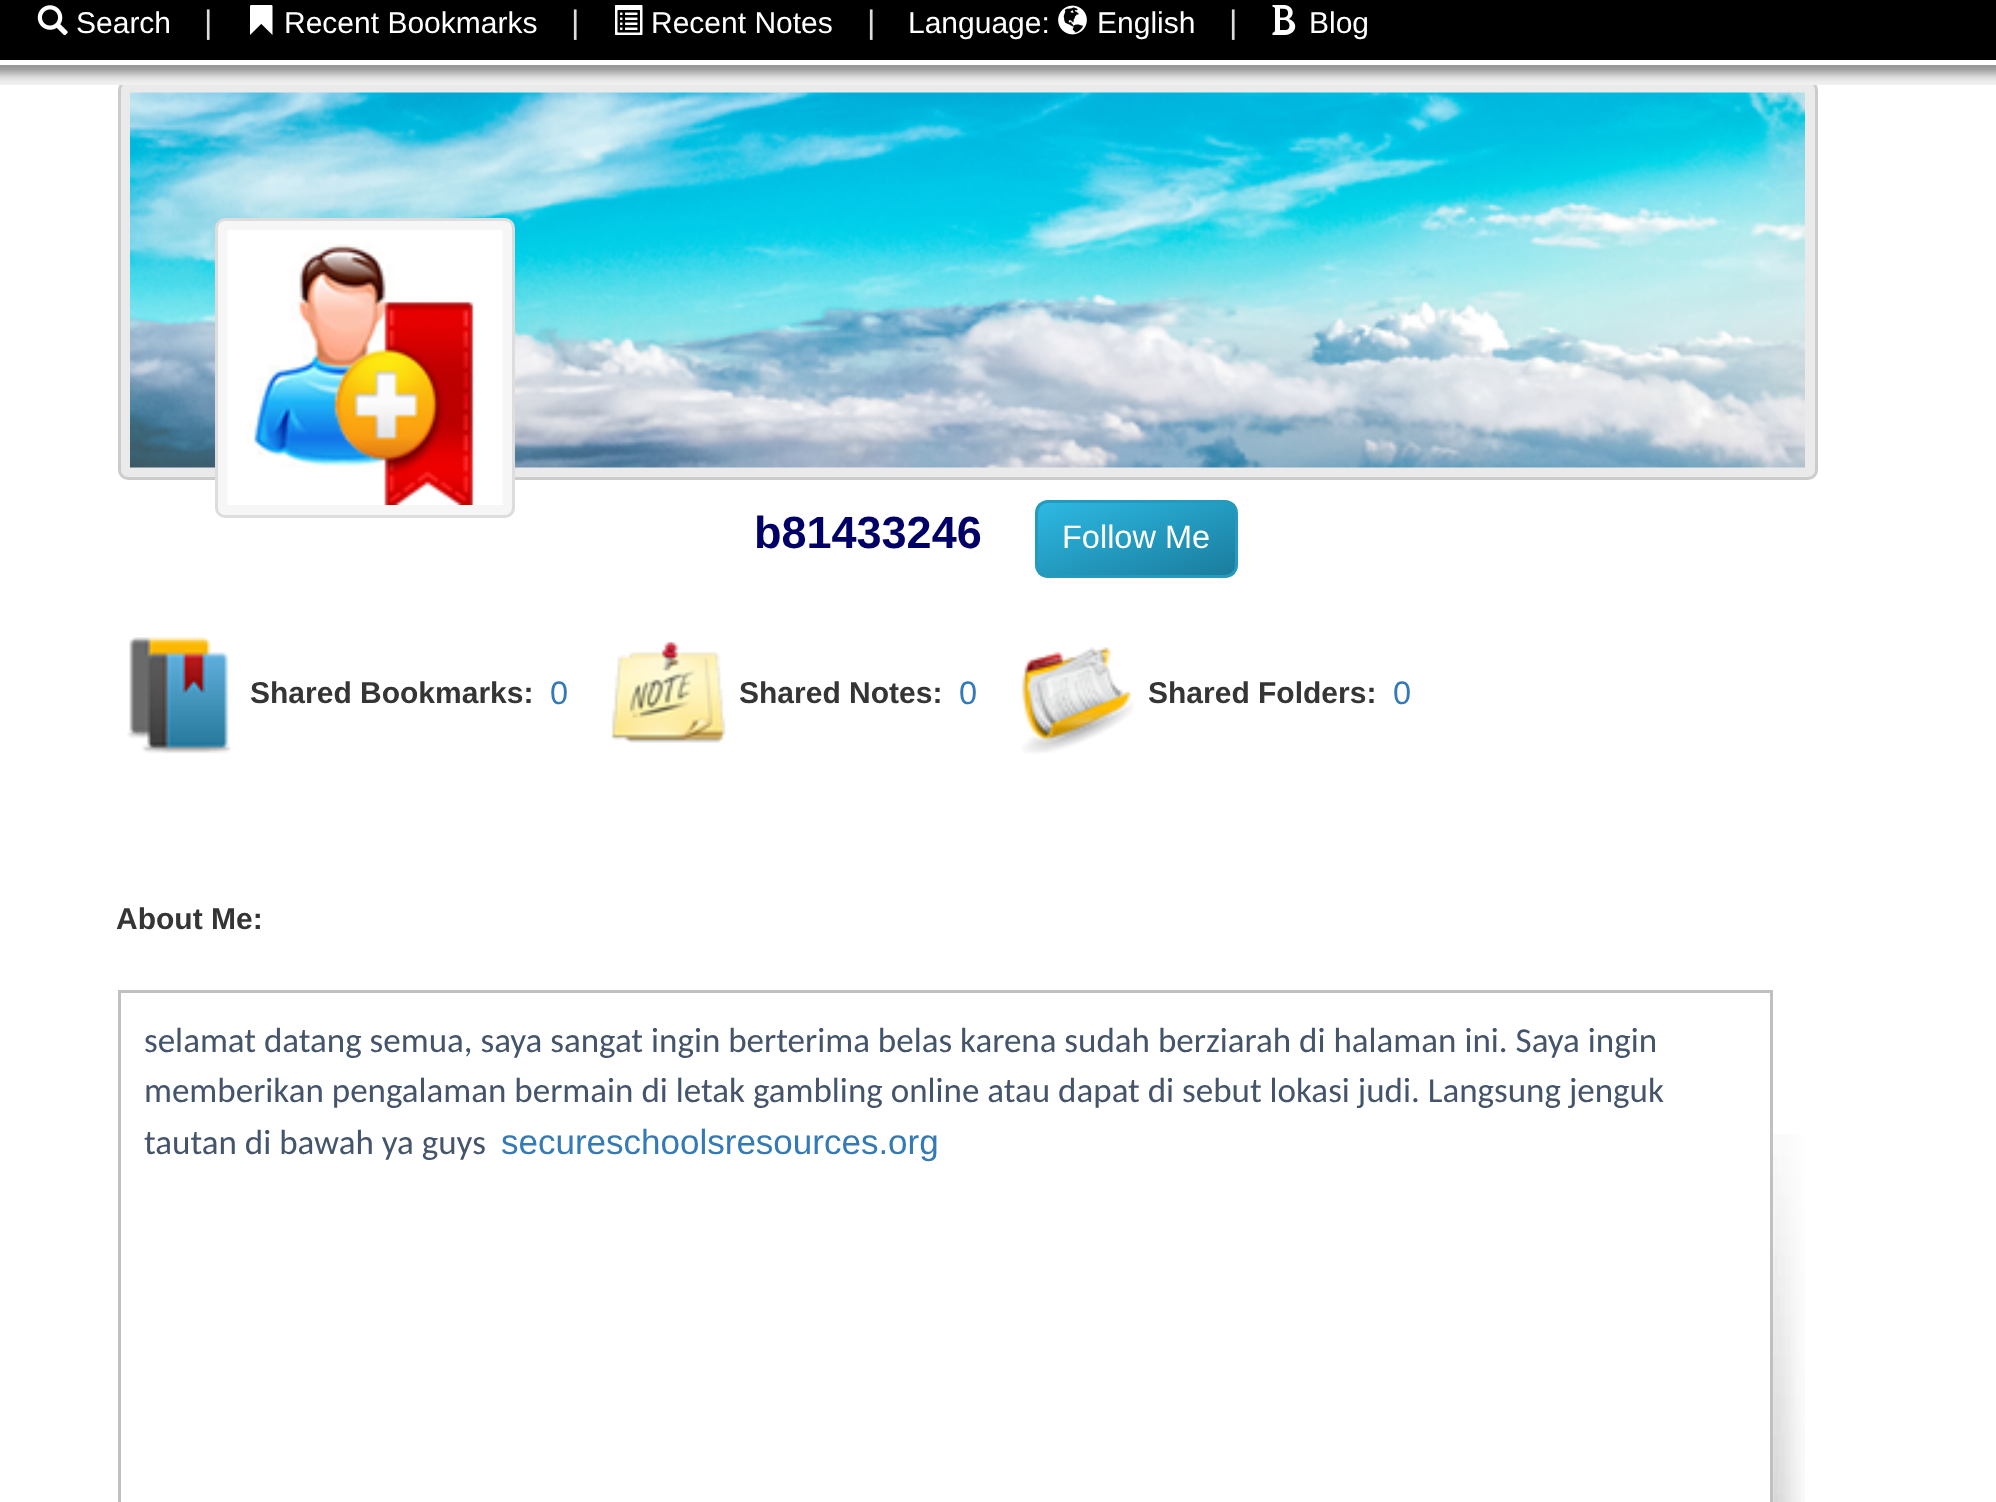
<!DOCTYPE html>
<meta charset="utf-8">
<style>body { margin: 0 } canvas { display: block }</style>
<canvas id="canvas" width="1996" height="1502"></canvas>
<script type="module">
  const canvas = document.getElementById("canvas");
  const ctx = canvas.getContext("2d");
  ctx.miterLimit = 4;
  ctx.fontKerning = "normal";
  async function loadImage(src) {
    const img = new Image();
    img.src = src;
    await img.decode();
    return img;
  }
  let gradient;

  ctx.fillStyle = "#ffffff";
  ctx.fillRect(0, 0, 1996, 1502);
  ctx.fillStyle = "#000000";
  ctx.fillRect(0, 0, 1996, 60);
  ctx.drawImage(await loadImage("img1.png"), 37, 5, 31, 31);
  ctx.font = "30px Liberation Sans";
  ctx.fillStyle = "#ffffff";
  ctx.fillText("Search", 76, 33);
  ctx.font = "32.5px Liberation Sans";
  ctx.fillStyle = "#dddddd";
  ctx.fillText("|", 204, 33);
  ctx.drawImage(await loadImage("img2.png"), 250, 5, 23, 30);
  ctx.font = "30px Liberation Sans";
  ctx.fillStyle = "#ffffff";
  ctx.fillText("Recent Bookmarks", 284, 33);
  ctx.font = "32.5px Liberation Sans";
  ctx.fillStyle = "#dddddd";
  ctx.fillText("|", 571, 33);
  ctx.drawImage(await loadImage("img3.png"), 615, 5, 28, 30);
  ctx.font = "30px Liberation Sans";
  ctx.fillStyle = "#ffffff";
  ctx.fillText("Recent Notes", 651, 33);
  ctx.font = "32.5px Liberation Sans";
  ctx.fillStyle = "#dddddd";
  ctx.fillText("|", 867, 33);
  ctx.font = "30px Liberation Sans";
  ctx.fillStyle = "#ffffff";
  ctx.fillText("Language:", 908, 33);
  ctx.drawImage(await loadImage("img4.png"), 1058, 5, 29, 30);
  ctx.fillText("English", 1097, 33);
  ctx.font = "32.5px Liberation Sans";
  ctx.fillStyle = "#dddddd";
  ctx.fillText("|", 1229, 33);
  ctx.drawImage(await loadImage("img5.png"), 1272, 5, 24, 30);
  ctx.font = "30px Liberation Sans";
  ctx.fillStyle = "#ffffff";
  ctx.fillText("Blog", 1309, 33);
  ctx.fillStyle = "#eaeaea";
  ctx.beginPath();
  ctx.roundRect(119.5, 81.5, 1697, 397, 8.5);
  ctx.fill();
  ctx.strokeStyle = "#cccccc";
  ctx.lineWidth = 3;
  ctx.stroke();
  ctx.drawImage(await loadImage("img6.png"), 0, 65, 1996, 20);
  ctx.drawImage(await loadImage("img7.png"), 130, 92, 1675, 376);
  ctx.fillStyle = "#f6f6f6";
  ctx.beginPath();
  ctx.roundRect(216.5, 219.5, 297, 297, 8.5);
  ctx.fill();
  ctx.strokeStyle = "#dddddd";
  ctx.stroke();
  ctx.drawImage(await loadImage("img8.png"), 227, 230, 276, 275);
  ctx.font = "bold 45px Liberation Sans";
  ctx.fillStyle = "#000066";
  ctx.fillText("b81433246", 754, 548);
  ctx.save();
  ctx.beginPath();
  ctx.roundRect(1035, 500, 203, 78, 13);
  ctx.clip();
  gradient = ctx.createLinearGradient(1113, 475, 1160, 603);
  gradient.addColorStop(0, "#2db9e3");
  gradient.addColorStop(1, "#1a7c9d");
  ctx.fillStyle = gradient;
  ctx.fillRect(1038, 503, 197, 72);
  ctx.restore();
  ctx.beginPath();
  ctx.roundRect(1036.5, 501.5, 200, 75, 11.5);
  ctx.strokeStyle = "#269abc";
  ctx.stroke();
  ctx.font = "32.5px Liberation Sans";
  ctx.fillStyle = "#ffffff";
  ctx.fillText("Follow Me", 1062, 548);
  ctx.drawImage(await loadImage("img9.png"), 127, 637, 104, 117);
  ctx.font = "bold 30px Liberation Sans";
  ctx.fillStyle = "#353535";
  ctx.fillText("Shared Bookmarks:", 250, 703);
  ctx.font = "32.5px Liberation Sans";
  ctx.fillStyle = "#337ab7";
  ctx.fillText("0", 550, 704);
  ctx.drawImage(await loadImage("img10.png"), 611, 641, 115, 102);
  ctx.font = "bold 30px Liberation Sans";
  ctx.fillStyle = "#353535";
  ctx.fillText("Shared Notes:", 739, 703);
  ctx.font = "32.5px Liberation Sans";
  ctx.fillStyle = "#337ab7";
  ctx.fillText("0", 959, 704);
  ctx.drawImage(await loadImage("img11.png"), 1021, 647, 113, 107);
  ctx.font = "bold 30px Liberation Sans";
  ctx.fillStyle = "#353535";
  ctx.fillText("Shared Folders:", 1148, 703);
  ctx.font = "32.5px Liberation Sans";
  ctx.fillStyle = "#337ab7";
  ctx.fillText("0", 1393, 704);
  ctx.font = "bold 30px Liberation Sans";
  ctx.fillStyle = "#353535";
  ctx.fillText("About Me:", 116, 929);
  ctx.drawImage(await loadImage("img12.png"), 1773, 1134, 32, 368);
  ctx.strokeStyle = "#c0c0c0";
  ctx.strokeRect(119.5, 991.5, 1652, 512);
  ctx.font = "35px Carlito";
  ctx.fillStyle = "#44546a";
  ctx.fillText("selamat datang semua, saya sangat ingin berterima belas karena sudah berziarah di halaman ini. Saya ingin", 144, 1052);
  ctx.fillText("memberikan pengalaman bermain di letak gambling online atau dapat di sebut lokasi judi. Langsung jenguk", 144, 1102);
  ctx.fillText("tautan di bawah ya guys", 144, 1154);
  ctx.font = "35px Liberation Sans";
  ctx.fillStyle = "#337ab7";
  ctx.fillText("secureschoolsresources.org", 501, 1154);
</script>
